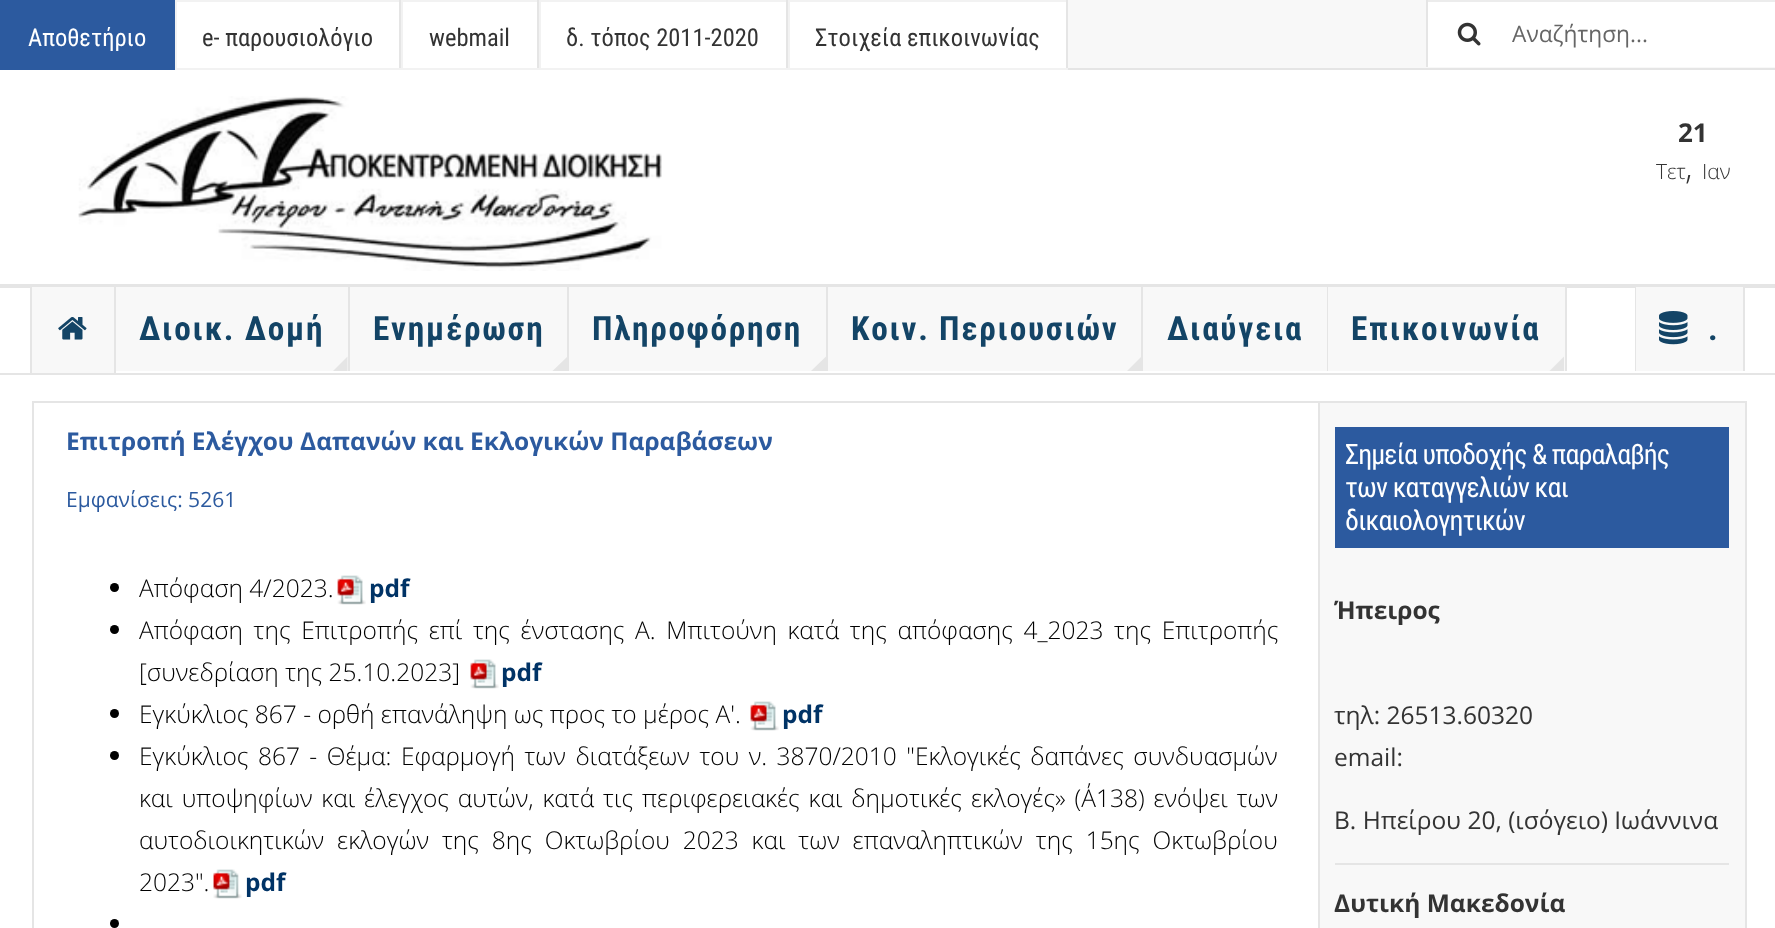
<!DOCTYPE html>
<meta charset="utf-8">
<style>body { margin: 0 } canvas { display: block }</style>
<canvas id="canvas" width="1775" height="928"></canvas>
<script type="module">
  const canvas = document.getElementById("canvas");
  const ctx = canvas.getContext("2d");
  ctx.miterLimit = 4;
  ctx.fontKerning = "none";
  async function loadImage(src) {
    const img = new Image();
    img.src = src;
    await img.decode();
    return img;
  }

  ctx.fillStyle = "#ffffff";
  ctx.fillRect(0, 0, 1775, 928);
  ctx.fillStyle = "#f8f8f8";
  ctx.fillRect(1068, 0, 707, 68);
  ctx.fillStyle = "#e5e5e5";
  ctx.fillRect(1068, 68, 707, 2);
  ctx.fillStyle = "#2c5a9f";
  ctx.fillRect(0, 0, 175, 70);
  ctx.font = "24.5px Roboto Condensed";
  ctx.fillStyle = "#ffffff";
  ctx.fillText("Αποθετήριο", 28, 46);
  ctx.fillStyle = "#f2f2f2";
  ctx.fillRect(175, 0, 893, 2);
  ctx.fillStyle = "#e5e5e5";
  ctx.fillRect(399, 0, 2, 70);
  ctx.fillStyle = "#f2f2f2";
  ctx.fillRect(175, 68, 226, 2);
  ctx.fillRect(175, 0, 2, 70);
  ctx.fillStyle = "#333333";
  ctx.fillText("e- παρουσιολόγιο", 202, 46);
  ctx.fillStyle = "#e5e5e5";
  ctx.fillRect(537, 0, 2, 70);
  ctx.fillStyle = "#f2f2f2";
  ctx.fillRect(401, 68, 138, 2);
  ctx.fillRect(401, 0, 2, 70);
  ctx.fillStyle = "#333333";
  ctx.fillText("webmail", 429, 46);
  ctx.fillStyle = "#e5e5e5";
  ctx.fillRect(786, 0, 2, 70);
  ctx.fillStyle = "#f2f2f2";
  ctx.fillRect(539, 68, 249, 2);
  ctx.fillRect(539, 0, 2, 70);
  ctx.fillStyle = "#333333";
  ctx.fillText("δ. τόπος 2011-2020", 566, 46);
  ctx.fillStyle = "#e5e5e5";
  ctx.fillRect(1066, 0, 2, 70);
  ctx.fillStyle = "#f2f2f2";
  ctx.fillRect(788, 68, 280, 2);
  ctx.fillRect(788, 0, 2, 70);
  ctx.fillStyle = "#333333";
  ctx.fillText("Στοιχεία επικοινωνίας", 815, 46);
  ctx.fillStyle = "#ffffff";
  ctx.fillRect(1428, 2, 347, 65);
  ctx.drawImage(await loadImage("img1.png"), 1457, 22, 24, 24);
  ctx.fillStyle = "#ececec";
  ctx.fillRect(1428, 0, 347, 2);
  ctx.fillStyle = "#e5e5e5";
  ctx.fillRect(1426, 0, 2, 67);
  ctx.font = "22.75px Open Sans";
  ctx.fillStyle = "#666666";
  ctx.fillText("Αναζήτηση...", 1512, 42);
  ctx.drawImage(await loadImage("img2.png"), 78, 96, 584, 175);
  ctx.font = "bold 26px Open Sans";
  ctx.fillStyle = "#333333";
  ctx.fillText("21", 1678, 142);
  ctx.font = "300 21px Open Sans";
  ctx.fillText("Τετ", 1656, 179);
  ctx.font = "300 35px Open Sans";
  ctx.fillText(",", 1685, 179);
  ctx.font = "300 21px Open Sans";
  ctx.fillText("Ιαν", 1702, 179);
  ctx.fillStyle = "#e5e5e5";
  ctx.fillRect(0, 284, 1775, 4);
  ctx.fillRect(0, 373, 1775, 2);
  ctx.fillRect(30, 287, 2, 86);
  ctx.fillStyle = "#f8f8f8";
  ctx.fillRect(32, 287, 82, 86);
  ctx.fillStyle = "#e5e5e5";
  ctx.fillRect(114, 287, 2, 86);
  ctx.drawImage(await loadImage("img3.png"), 58, 317, 29, 23);
  ctx.fillStyle = "#f8f8f8";
  ctx.fillRect(116, 287, 232, 84);
  ctx.fillStyle = "#e5e5e5";
  ctx.fillRect(348, 287, 2, 84);
  ctx.letterSpacing = "1.75px";
  ctx.font = "bold 33.25px Roboto Condensed";
  ctx.fillStyle = "#134466";
  ctx.fillText("Διοικ. Δομή", 139, 340);
  ctx.fillStyle = "#e5e5e5";
  ctx.beginPath();
  ctx.moveTo(333, 371);
  ctx.lineTo(347.5, 356.5);
  ctx.lineTo(347.5, 371);
  ctx.closePath();
  ctx.fill();
  ctx.fillStyle = "#f8f8f8";
  ctx.fillRect(350, 287, 217, 84);
  ctx.fillStyle = "#e5e5e5";
  ctx.fillRect(567, 287, 2, 84);
  ctx.fillStyle = "#134466";
  ctx.fillText("Ενημέρωση", 373, 340);
  ctx.fillStyle = "#e5e5e5";
  ctx.beginPath();
  ctx.moveTo(552.5, 371);
  ctx.lineTo(567.5, 356.5);
  ctx.lineTo(567.5, 371);
  ctx.closePath();
  ctx.fill();
  ctx.fillStyle = "#f8f8f8";
  ctx.fillRect(569, 287, 257, 84);
  ctx.fillStyle = "#e5e5e5";
  ctx.fillRect(826, 287, 2, 84);
  ctx.fillStyle = "#134466";
  ctx.fillText("Πληροφόρηση", 592, 340);
  ctx.fillStyle = "#e5e5e5";
  ctx.beginPath();
  ctx.moveTo(811, 371);
  ctx.lineTo(826, 356.5);
  ctx.lineTo(826, 371);
  ctx.closePath();
  ctx.fill();
  ctx.fillStyle = "#f8f8f8";
  ctx.fillRect(828, 287, 313, 84);
  ctx.fillStyle = "#e5e5e5";
  ctx.fillRect(1141, 287, 2, 84);
  ctx.fillStyle = "#134466";
  ctx.fillText("Κοιν. Περιουσιών", 851, 340);
  ctx.fillStyle = "#e5e5e5";
  ctx.beginPath();
  ctx.moveTo(1127, 371);
  ctx.lineTo(1141.5, 356.5);
  ctx.lineTo(1141.5, 371);
  ctx.closePath();
  ctx.fill();
  ctx.fillStyle = "#f8f8f8";
  ctx.fillRect(1143, 287, 184, 84);
  ctx.fillStyle = "#e5e5e5";
  ctx.fillRect(1327, 287, 1, 84);
  ctx.fillStyle = "#134466";
  ctx.fillText("Διαύγεια", 1167, 340);
  ctx.fillStyle = "#f8f8f8";
  ctx.fillRect(1328, 287, 237, 84);
  ctx.fillStyle = "#e5e5e5";
  ctx.fillRect(1565, 287, 2, 84);
  ctx.fillStyle = "#134466";
  ctx.fillText("Επικοινωνία", 1351, 340);
  ctx.fillStyle = "#e5e5e5";
  ctx.beginPath();
  ctx.moveTo(1549.5, 371);
  ctx.lineTo(1564, 356.5);
  ctx.lineTo(1564, 371);
  ctx.closePath();
  ctx.fill();
  ctx.fillRect(1635, 287, 1, 84);
  ctx.fillStyle = "#f8f8f8";
  ctx.fillRect(1636, 287, 107, 84);
  ctx.fillStyle = "#e5e5e5";
  ctx.fillRect(1743, 287, 2, 84);
  ctx.drawImage(await loadImage("img4.png"), 1659, 311, 29, 34);
  ctx.fillStyle = "#134466";
  ctx.fillText(".", 1708, 340);
  ctx.strokeStyle = "#e5e5e5";
  ctx.lineWidth = 2;
  ctx.strokeRect(33, 402, 1713, 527);
  ctx.letterSpacing = "0px";
  ctx.font = "bold 24.5px Open Sans";
  ctx.fillStyle = "#2c5a9f";
  ctx.fillText("Επιτροπή Ελέγχου Δαπανών και Εκλογικών Παραβάσεων", 66, 450);
  ctx.font = "21px Open Sans";
  ctx.fillText("Εμφανίσεις: 5261", 66, 507);
  ctx.fillStyle = "#000000";
  ctx.beginPath();
  ctx.arc(114.5, 587.5, 4.5, 0, Math.PI * 2);
  ctx.fill();
  ctx.font = "300 24.5px Open Sans";
  ctx.fillText("Απόφαση 4/2023.", 139, 597);
  ctx.drawImage(await loadImage("img5.png"), 337, 575, 29, 30);
  ctx.font = "bold 24.5px Open Sans";
  ctx.fillStyle = "#003366";
  ctx.fillText("pdf", 369, 597);
  ctx.fillStyle = "#000000";
  ctx.beginPath();
  ctx.arc(114.5, 629.5, 4.5, 0, Math.PI * 2);
  ctx.fill();
  ctx.wordSpacing = "4.25px";
  ctx.font = "300 24.5px Open Sans";
  ctx.fillText("Απόφαση της Επιτροπής επί της ένστασης Α. Μπιτούνη κατά της απόφασης 4_2023 της Επιτροπής", 139, 639);
  ctx.wordSpacing = "0px";
  ctx.fillText("[συνεδρίαση της 25.10.2023]", 139, 681);
  ctx.drawImage(await loadImage("img5.png"), 470, 659, 29, 30);
  ctx.font = "bold 24.5px Open Sans";
  ctx.fillStyle = "#003366";
  ctx.fillText("pdf", 501, 681);
  ctx.fillStyle = "#000000";
  ctx.beginPath();
  ctx.arc(114.5, 713.5, 4.5, 0, Math.PI * 2);
  ctx.fill();
  ctx.font = "300 24.5px Open Sans";
  ctx.fillText("Εγκύκλιος 867 - ορθή επανάληψη ως προς το μέρος Α'.", 139, 723);
  ctx.drawImage(await loadImage("img6.png"), 750, 701, 29, 30);
  ctx.font = "bold 24.5px Open Sans";
  ctx.fillStyle = "#003366";
  ctx.fillText("pdf", 782, 723);
  ctx.fillStyle = "#000000";
  ctx.beginPath();
  ctx.arc(114.5, 755.5, 4.5, 0, Math.PI * 2);
  ctx.fill();
  ctx.wordSpacing = "3.1px";
  ctx.font = "300 24.5px Open Sans";
  ctx.fillText("Εγκύκλιος 867 - Θέμα: Εφαρμογή των διατάξεων του ν. 3870/2010 \"Εκλογικές δαπάνες συνδυασμών", 139, 765);
  ctx.wordSpacing = "2.5px";
  ctx.fillText("και υποψηφίων και έλεγχος αυτών, κατά τις περιφερειακές και δημοτικές εκλογές» (Α΄138) ενόψει των", 139, 807);
  ctx.wordSpacing = "6.5px";
  ctx.fillText("αυτοδιοικητικών εκλογών της 8ης Οκτωβρίου 2023 και των επαναληπτικών της 15ης Οκτωβρίου", 139, 849);
  ctx.wordSpacing = "0px";
  ctx.fillText("2023\".", 139, 891);
  ctx.drawImage(await loadImage("img7.png"), 213, 869, 29, 30);
  ctx.font = "bold 24.5px Open Sans";
  ctx.fillStyle = "#003366";
  ctx.fillText("pdf", 245, 891);
  ctx.fillStyle = "#000000";
  ctx.beginPath();
  ctx.arc(114.5, 923.5, 4.5, 0, Math.PI * 2);
  ctx.fill();
  ctx.fillStyle = "#f8f8f8";
  ctx.beginPath();
  ctx.rect(1319, 402, 427, 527);
  ctx.fill();
  ctx.stroke();
  ctx.fillStyle = "#2c5a9f";
  ctx.fillRect(1335, 427, 394, 121);
  ctx.letterSpacing = "-0.9px";
  ctx.font = "28px Roboto Condensed";
  ctx.fillStyle = "#ffffff";
  ctx.fillText("Σημεία υποδοχής & παραλαβής", 1345, 464);
  ctx.fillText("των καταγγελιών και", 1345, 497);
  ctx.fillText("δικαιολογητικών", 1345, 530);
  ctx.letterSpacing = "0px";
  ctx.font = "bold 24.5px Open Sans";
  ctx.fillStyle = "#333333";
  ctx.fillText("Ήπειρος", 1334, 619);
  ctx.font = "24.5px Open Sans";
  ctx.fillText("τηλ: 26513.60320", 1334, 724);
  ctx.fillText("email:", 1334, 766);
  ctx.fillText("Β. Ηπείρου 20, (ισόγειο) Ιωάννινα", 1334, 829);
  ctx.fillStyle = "#e5e5e5";
  ctx.fillRect(1335, 863, 394, 2);
  ctx.font = "bold 24.5px Open Sans";
  ctx.fillStyle = "#333333";
  ctx.fillText("Δυτική Μακεδονία", 1334, 912);
</script>
